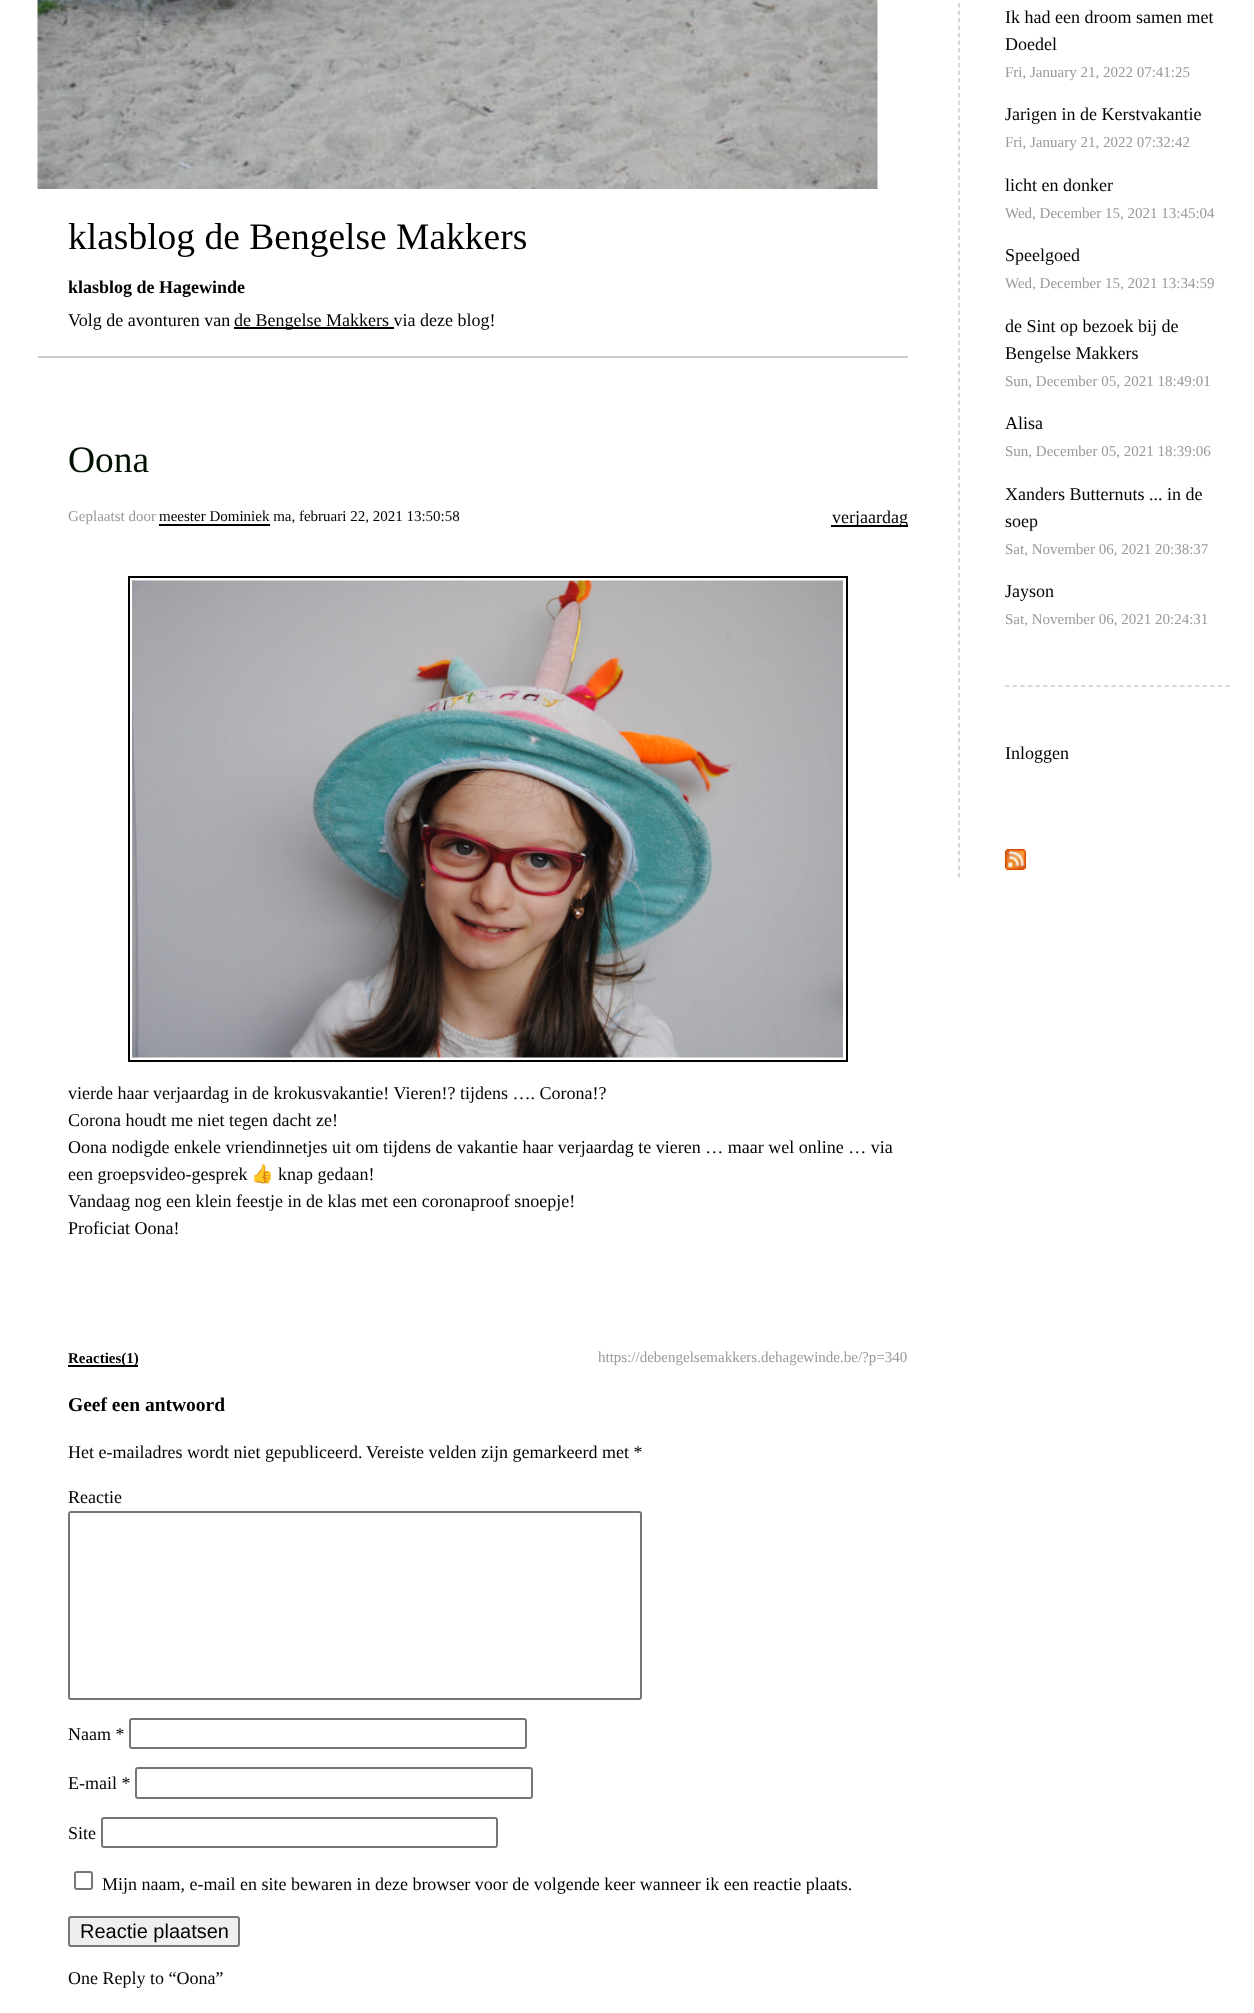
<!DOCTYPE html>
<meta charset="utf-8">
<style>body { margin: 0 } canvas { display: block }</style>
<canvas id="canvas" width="1254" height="2013"></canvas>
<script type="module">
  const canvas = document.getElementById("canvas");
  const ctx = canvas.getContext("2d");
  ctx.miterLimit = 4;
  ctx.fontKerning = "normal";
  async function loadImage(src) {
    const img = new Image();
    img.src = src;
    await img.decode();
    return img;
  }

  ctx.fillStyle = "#ffffff";
  ctx.fillRect(0, 0, 1254, 2013);
  ctx.drawImage(await loadImage("img1.png"), 37, 0, 841, 189);
  ctx.beginPath();
  ctx.moveTo(959, -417);
  ctx.lineTo(959, 877.5);
  ctx.strokeStyle = "#cccccc";
  ctx.lineWidth = 1.5;
  ctx.setLineDash([4.5, 3]);
  ctx.stroke();
  ctx.beginPath();
  ctx.moveTo(1005, 686);
  ctx.lineTo(1230, 686);
  ctx.setLineDash([4.5, 3.1]);
  ctx.stroke();
  ctx.font = "18px Liberation Serif";
  ctx.fillStyle = "#000000";
  ctx.fillText("Ik had een droom samen met", 1005, 23);
  ctx.fillText("Doedel", 1005, 50);
  ctx.font = "15px Liberation Serif";
  ctx.fillStyle = "#999999";
  ctx.fillText("Fri, January 21, 2022 07:41:25", 1005, 77);
  ctx.font = "18px Liberation Serif";
  ctx.fillStyle = "#000000";
  ctx.fillText("Jarigen in de Kerstvakantie", 1005, 120);
  ctx.font = "15px Liberation Serif";
  ctx.fillStyle = "#999999";
  ctx.fillText("Fri, January 21, 2022 07:32:42", 1005, 147);
  ctx.font = "18px Liberation Serif";
  ctx.fillStyle = "#000000";
  ctx.fillText("licht en donker", 1005, 191);
  ctx.font = "15px Liberation Serif";
  ctx.fillStyle = "#999999";
  ctx.fillText("Wed, December 15, 2021 13:45:04", 1005, 218);
  ctx.font = "18px Liberation Serif";
  ctx.fillStyle = "#000000";
  ctx.fillText("Speelgoed", 1005, 261);
  ctx.font = "15px Liberation Serif";
  ctx.fillStyle = "#999999";
  ctx.fillText("Wed, December 15, 2021 13:34:59", 1005, 288);
  ctx.font = "18px Liberation Serif";
  ctx.fillStyle = "#000000";
  ctx.fillText("de Sint op bezoek bij de", 1005, 332);
  ctx.fillText("Bengelse Makkers", 1005, 359);
  ctx.font = "15px Liberation Serif";
  ctx.fillStyle = "#999999";
  ctx.fillText("Sun, December 05, 2021 18:49:01", 1005, 386);
  ctx.font = "18px Liberation Serif";
  ctx.fillStyle = "#000000";
  ctx.fillText("Alisa", 1005, 429);
  ctx.font = "15px Liberation Serif";
  ctx.fillStyle = "#999999";
  ctx.fillText("Sun, December 05, 2021 18:39:06", 1005, 456);
  ctx.font = "18px Liberation Serif";
  ctx.fillStyle = "#000000";
  ctx.fillText("Xanders Butternuts ... in de", 1005, 500);
  ctx.fillText("soep", 1005, 527);
  ctx.font = "15px Liberation Serif";
  ctx.fillStyle = "#999999";
  ctx.fillText("Sat, November 06, 2021 20:38:37", 1005, 554);
  ctx.font = "18px Liberation Serif";
  ctx.fillStyle = "#000000";
  ctx.fillText("Jayson", 1005, 597);
  ctx.font = "15px Liberation Serif";
  ctx.fillStyle = "#999999";
  ctx.fillText("Sat, November 06, 2021 20:24:31", 1005, 624);
  ctx.font = "18px Liberation Serif";
  ctx.fillStyle = "#000000";
  ctx.fillText("Inloggen", 1005, 759);
  ctx.drawImage(await loadImage("img2.png"), 1005, 849, 21, 21);
  ctx.fillStyle = "#cccccc";
  ctx.fillRect(38, 356, 870, 2);
  ctx.font = "37.5px Liberation Serif";
  ctx.fillStyle = "#000000";
  ctx.fillText("klasblog de Bengelse Makkers", 68, 249);
  ctx.font = "bold 18px Liberation Serif";
  ctx.fillText("klasblog de Hagewinde", 68, 293);
  ctx.font = "18px Liberation Serif";
  ctx.fillText("Volg de avonturen van", 68, 326);
  ctx.fillRect(234, 327, 160, 2);
  ctx.fillText("de Bengelse Makkers via deze blog!", 234, 326);
  ctx.font = "37.5px Liberation Serif";
  ctx.fillStyle = "#011001";
  ctx.fillText("Oona", 68, 472);
  ctx.font = "15px Liberation Serif";
  ctx.fillStyle = "#999999";
  ctx.fillText("Geplaatst door", 68, 521);
  ctx.fillStyle = "#000000";
  ctx.fillText("meester Dominiek ma, februari 22, 2021 13:50:58", 159, 521);
  ctx.fillRect(159, 524, 111, 2);
  ctx.fillRect(831, 525, 77, 2);
  ctx.font = "18px Liberation Serif";
  ctx.fillText("verjaardag", 832, 523);
  ctx.strokeStyle = "#000000";
  ctx.lineWidth = 2;
  ctx.setLineDash([]);
  ctx.strokeRect(129, 577, 718, 484);
  ctx.drawImage(await loadImage("img3.png"), 132, 580, 711, 478);
  ctx.fillText("vierde haar verjaardag in de krokusvakantie! Vieren!? tijdens …. Corona!?", 68, 1099);
  ctx.fillText("Corona houdt me niet tegen dacht ze!", 68, 1126);
  ctx.fillText("Oona nodigde enkele vriendinnetjes uit om tijdens de vakantie haar verjaardag te vieren … maar wel online … via", 68, 1153);
  ctx.fillText("een groepsvideo-gesprek", 68, 1180);
  ctx.font = "18px Noto Color Emoji";
  ctx.fillText("👍", 251, 1180);
  ctx.font = "18px Liberation Serif";
  ctx.fillText("knap gedaan!", 278, 1180);
  ctx.fillText("Vandaag nog een klein feestje in de klas met een coronaproof snoepje!", 68, 1207);
  ctx.fillText("Proficiat Oona!", 68, 1234);
  ctx.fillRect(68, 1365, 70, 2);
  ctx.font = "bold 15px Liberation Serif";
  ctx.fillText("Reacties(1)", 68, 1363);
  ctx.font = "15px Liberation Serif";
  ctx.fillStyle = "#999999";
  ctx.fillText("https://debengelsemakkers.dehagewinde.be/?p=340", 598, 1362);
  ctx.font = "bold 19.5px Liberation Serif";
  ctx.fillStyle = "#000000";
  ctx.fillText("Geef een antwoord", 68, 1411);
  ctx.font = "18px Liberation Serif";
  ctx.fillText("Het e-mailadres wordt niet gepubliceerd.", 68, 1458);
  ctx.fillText("Vereiste velden zijn gemarkeerd met *", 366, 1458);
  ctx.fillText("Reactie", 68, 1503);
  ctx.beginPath();
  ctx.roundRect(69, 1512, 572, 187, 2);
  ctx.strokeStyle = "#767676";
  ctx.stroke();
  ctx.fillText("Naam *", 68, 1740);
  ctx.beginPath();
  ctx.roundRect(130, 1719, 396, 29, 2);
  ctx.stroke();
  ctx.fillText("E-mail *", 68, 1789);
  ctx.beginPath();
  ctx.roundRect(136, 1768, 396, 30, 2);
  ctx.stroke();
  ctx.fillText("Site", 68, 1839);
  ctx.beginPath();
  ctx.roundRect(102, 1818, 395, 29, 2);
  ctx.stroke();
  ctx.beginPath();
  ctx.roundRect(75, 1872, 17, 17, 2);
  ctx.stroke();
  ctx.fillText("Mijn naam, e-mail en site bewaren in deze browser voor de volgende keer wanneer ik een reactie plaats.", 102, 1890);
  ctx.fillStyle = "#efefef";
  ctx.beginPath();
  ctx.roundRect(69, 1917, 170, 29, 2);
  ctx.fill();
  ctx.stroke();
  ctx.font = "20px Liberation Sans";
  ctx.fillStyle = "#000000";
  ctx.fillText("Reactie plaatsen", 80, 1938);
  ctx.font = "18px Liberation Serif";
  ctx.fillText("One Reply to “Oona”", 68, 1984);
</script>
